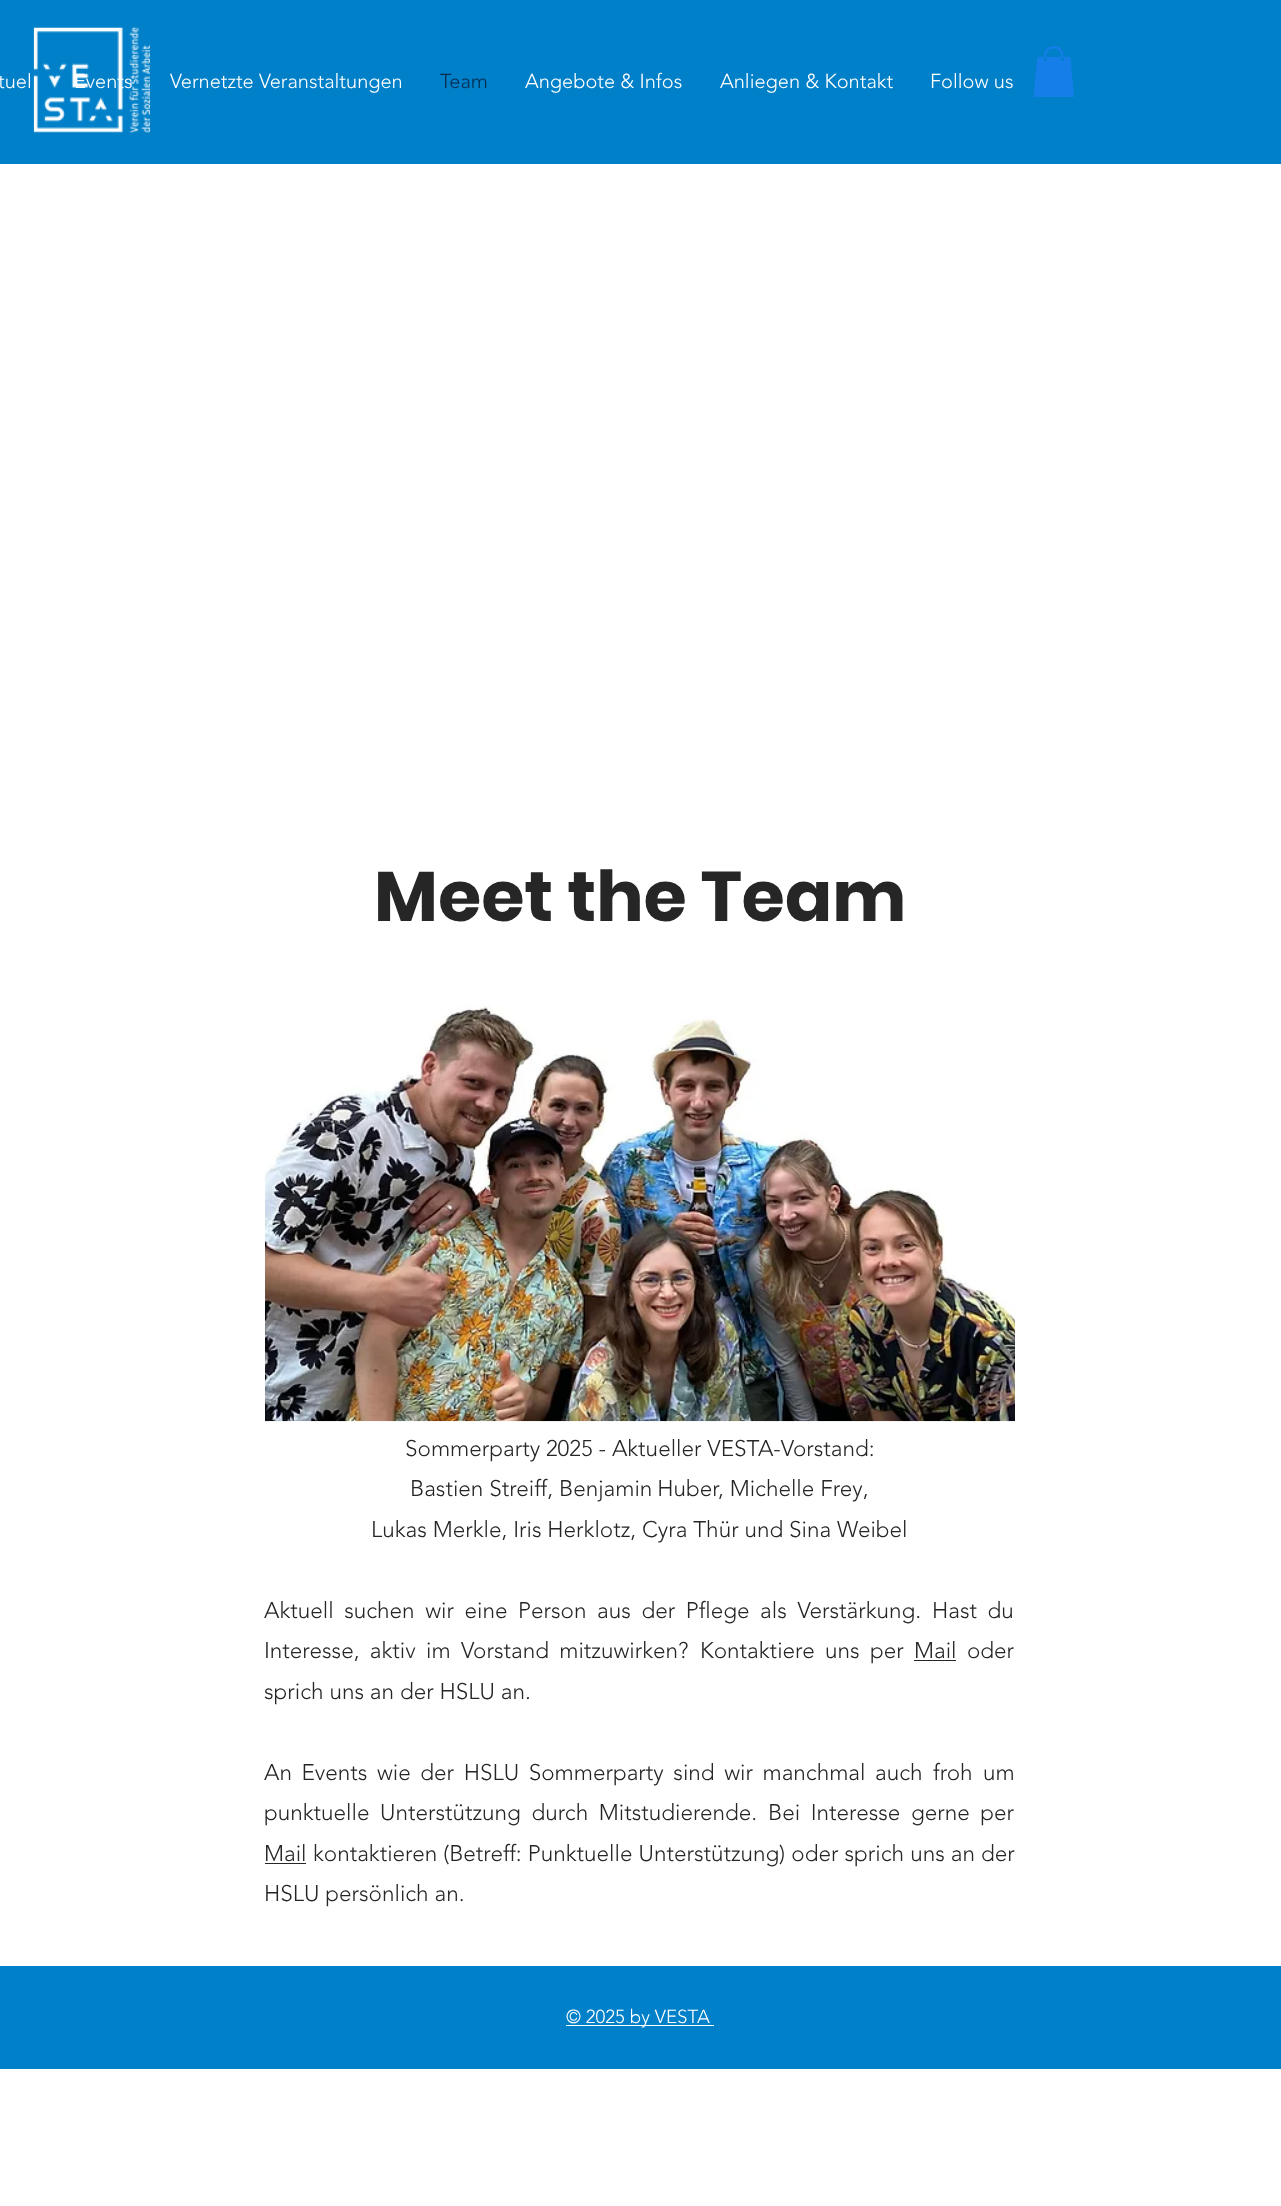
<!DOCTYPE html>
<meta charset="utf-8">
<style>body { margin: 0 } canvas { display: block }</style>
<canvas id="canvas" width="1281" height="2206"></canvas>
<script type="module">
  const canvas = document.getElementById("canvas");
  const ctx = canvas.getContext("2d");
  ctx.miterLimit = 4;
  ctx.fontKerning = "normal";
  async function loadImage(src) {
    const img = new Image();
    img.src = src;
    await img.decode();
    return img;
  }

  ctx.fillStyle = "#ffffff";
  ctx.fillRect(0, 0, 1281, 2206);
  ctx.fillStyle = "#0080c9";
  ctx.fillRect(0, 0, 1281, 164);
  ctx.drawImage(await loadImage("img1.png"), 33, 27, 117, 106);
  ctx.font = "300 20px 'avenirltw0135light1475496'";
  ctx.fillStyle = "#ffffff";
  ctx.fillText("tuel", -2, 88);
  ctx.fillText("Events", 74, 88);
  ctx.fillText("Vernetzte Veranstaltungen", 170, 88);
  ctx.fillStyle = "#072a4d";
  ctx.fillText("Team", 440, 88);
  ctx.fillStyle = "#ffffff";
  ctx.fillText("Angebote & Infos", 525, 88);
  ctx.fillText("Anliegen & Kontakt", 720, 88);
  ctx.fillText("Follow us", 930, 88);
  ctx.drawImage(await loadImage("img2.png"), 1033, 46, 41, 51);
  ctx.font = "bold 70px Poppins";
  ctx.fillStyle = "#262626";
  ctx.fillText("Meet the Team", 374, 921);
  ctx.drawImage(await loadImage("img3.png"), 265, 1005, 750, 417);
  ctx.font = "300 22.5px 'avenirltw0135light1475496'";
  ctx.fillText("Sommerparty 2025 - Aktueller VESTA-Vorstand:", 405, 1456);
  ctx.fillText("Bastien Streiff,", 410, 1496);
  ctx.wordSpacing = "-1px";
  ctx.fillText("Benjamin Huber", 559, 1496);
  ctx.wordSpacing = "0px";
  ctx.fillText(", Michelle Frey,", 718, 1496);
  ctx.fillText("Lukas Merkle, Iris Herklotz, Cyra Thür und Sina Weibel", 371, 1537);
  ctx.wordSpacing = "4.75px";
  ctx.fillText("Aktuell suchen wir eine Person aus der Pflege als Verstärkung.", 264, 1618);
  ctx.fillText("Hast du", 932, 1618);
  ctx.wordSpacing = "4.5px";
  ctx.fillText("Interesse, aktiv im Vorstand mitzuwirken?", 264, 1658);
  ctx.fillText("Kontaktiere uns per", 700, 1658);
  ctx.wordSpacing = "0px";
  ctx.fillText("Mail", 914, 1658);
  ctx.fillRect(914, 1660, 42, 1);
  ctx.fillText("oder", 967, 1658);
  ctx.fillText("sprich uns an der HSLU an.", 264, 1699);
  ctx.wordSpacing = "3.75px";
  ctx.fillText("An Events wie der HSLU Sommerparty sind wir manchmal auch", 264, 1780);
  ctx.wordSpacing = "0px";
  ctx.fillText("froh", 933, 1780);
  ctx.fillText("um", 983, 1780);
  ctx.wordSpacing = "4.75px";
  ctx.fillText("punktuelle Unterstützung durch Mitstudierende.", 264, 1820);
  ctx.fillText("Bei Interesse gerne per", 768, 1820);
  ctx.wordSpacing = "0px";
  ctx.fillText("Mail", 264, 1861);
  ctx.fillRect(265, 1863, 41, 1);
  ctx.wordSpacing = "0.25px";
  ctx.fillText("kontaktieren (Betreff: Punktuelle Unterstützung) oder sprich uns an", 313, 1861);
  ctx.wordSpacing = "0px";
  ctx.fillText("der", 981, 1861);
  ctx.fillText("HSLU persönlich an.", 264, 1901);
  ctx.fillStyle = "#0080c9";
  ctx.fillRect(0, 1966, 1281, 103);
  ctx.fillStyle = "#ffffff";
  ctx.fillRect(566, 2025, 148, 1);
  ctx.font = "300 18.75px 'avenirltw0135light1475496'";
  ctx.fillText("© 2025 by VESTA", 566, 2023);
</script>
